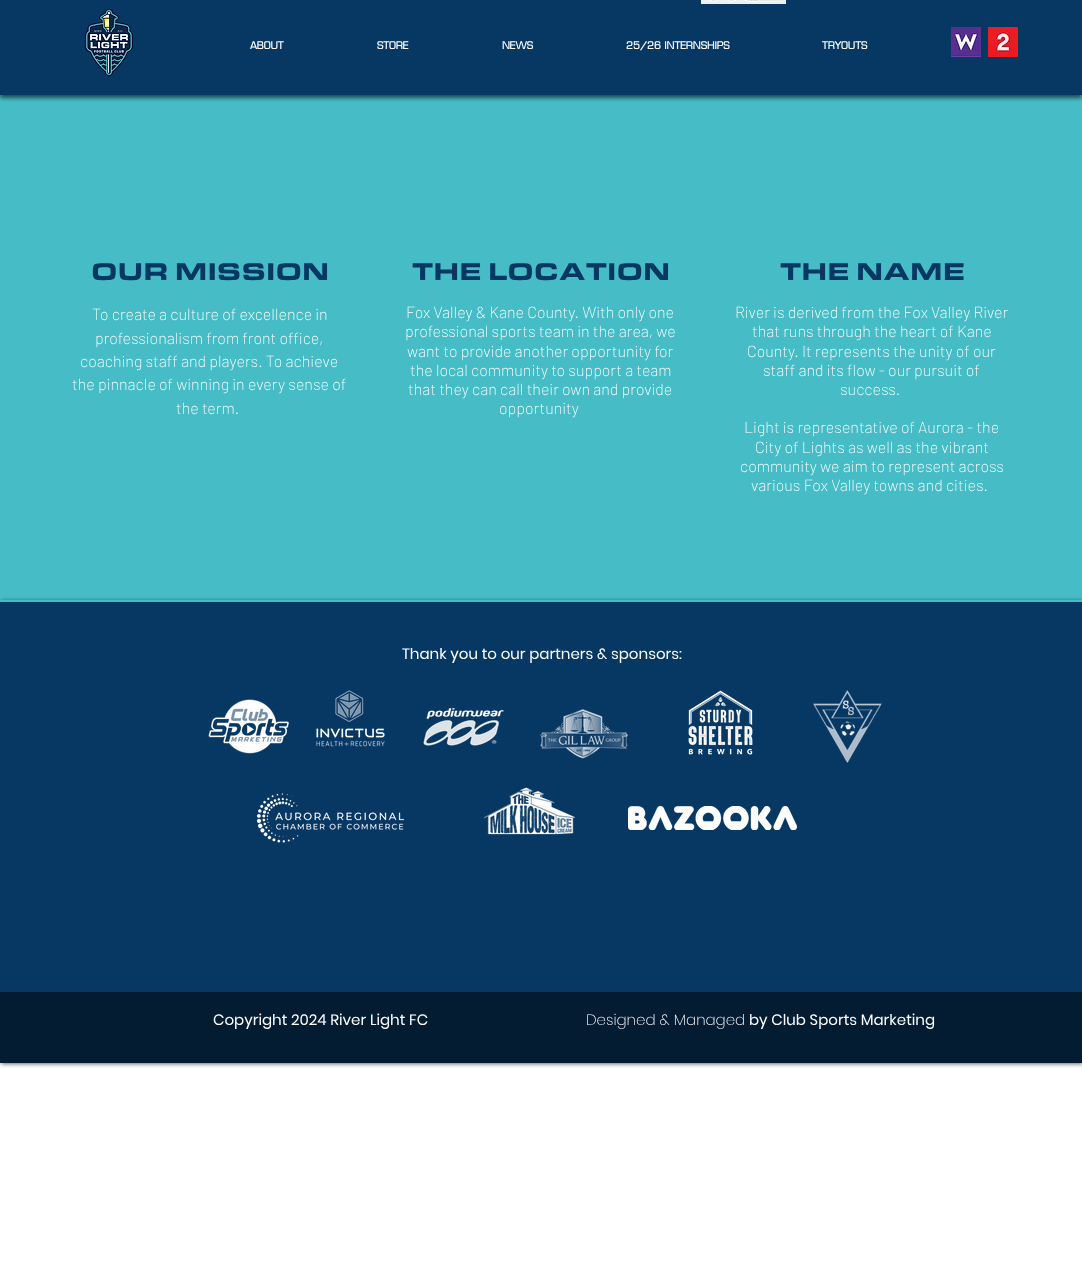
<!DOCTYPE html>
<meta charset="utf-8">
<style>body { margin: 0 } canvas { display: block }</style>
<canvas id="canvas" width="1082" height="1282"></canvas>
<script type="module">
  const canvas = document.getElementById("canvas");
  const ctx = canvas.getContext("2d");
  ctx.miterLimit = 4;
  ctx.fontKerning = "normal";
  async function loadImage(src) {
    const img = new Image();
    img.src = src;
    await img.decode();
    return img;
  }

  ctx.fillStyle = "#ffffff";
  ctx.fillRect(0, 0, 1082, 1282);
  ctx.fillStyle = "#46bdc6";
  ctx.fillRect(0, 95, 1082, 505);
  ctx.fillStyle = "rgba(0, 0, 0, 0.6)";
  ctx.filter = "blur(2px)";
  ctx.beginPath();
  ctx.rect(0, 3, 1082, 95);
  ctx.fill();
  ctx.filter = "none";
  ctx.fillStyle = "#073763";
  ctx.fillRect(0, 0, 1082, 95);
  ctx.drawImage(await loadImage("img1.png"), 701, 0, 85, 4);
  ctx.drawImage(await loadImage("img2.png"), 85, 9, 48, 67);
  ctx.font = "bold 10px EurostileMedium";
  ctx.fillStyle = "#ffffff";
  ctx.fillText("ABOUT", 250, 49);
  ctx.fillText("STORE", 377, 49);
  ctx.fillText("NEWS", 502, 49);
  ctx.fillText("25/26 INTERNSHIPS", 626, 49);
  ctx.fillText("TRYOUTS", 822, 49);
  ctx.drawImage(await loadImage("img3.png"), 951, 27, 30, 30);
  ctx.drawImage(await loadImage("img4.png"), 988, 27, 30, 30);
  ctx.font = "900 25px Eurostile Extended";
  ctx.fillStyle = "#073763";
  ctx.fillText("OUR MISSION", 91, 280);
  ctx.font = "200 16px Barlow";
  ctx.fillStyle = "#ffffff";
  ctx.fillText("To create a culture of excellence in", 92, 320);
  ctx.fillText("professionalism from front office,", 95, 344);
  ctx.fillText("coaching staff and players. To achieve", 80, 367);
  ctx.fillText("the pinnacle of winning in every sense of", 72, 390);
  ctx.fillText("the term.", 176, 414);
  ctx.font = "900 25px Eurostile Extended";
  ctx.fillStyle = "#073763";
  ctx.fillText("THE LOCATION", 412, 280);
  ctx.font = "200 16px Barlow";
  ctx.fillStyle = "#ffffff";
  ctx.fillText("Fox Valley & Kane County. With only one", 406, 318);
  ctx.fillText("professional sports team in the area, we", 405, 337);
  ctx.fillText("want to provide another opportunity for", 407, 357);
  ctx.fillText("the local community to support a team", 410, 376);
  ctx.fillText("that they can call their own and provide", 408, 395);
  ctx.fillText("opportunity", 499, 414);
  ctx.font = "900 25px Eurostile Extended";
  ctx.fillStyle = "#073763";
  ctx.fillText("THE NAME", 780, 280);
  ctx.font = "200 16px Barlow";
  ctx.fillStyle = "#ffffff";
  ctx.fillText("River is derived from the Fox Valley River", 735, 318);
  ctx.fillText("that runs through the heart of Kane", 752, 337);
  ctx.fillText("County. It represents the unity of our", 747, 357);
  ctx.fillText("staff and its flow - our pursuit of", 763, 376);
  ctx.fillText("success.", 840, 395);
  ctx.fillText("Light is representative of Aurora - the", 744, 433);
  ctx.fillText("City of Lights as well as the vibrant", 755, 453);
  ctx.fillText("community we aim to represent across", 740, 472);
  ctx.fillText("various Fox Valley towns and cities.", 751, 491);
  ctx.fillStyle = "rgba(0, 0, 0, 0.6)";
  ctx.filter = "blur(2px)";
  ctx.beginPath();
  ctx.rect(1, 601, 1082, 463);
  ctx.fill();
  ctx.filter = "none";
  ctx.fillStyle = "#073763";
  ctx.fillRect(0, 602, 1082, 390);
  ctx.fillStyle = "#46bdc6";
  ctx.fillRect(0, 600, 1082, 2);
  ctx.font = "15px Poppins";
  ctx.fillStyle = "#ffffff";
  ctx.fillText("Thank you to our partners & sponsors:", 402, 659);
  ctx.drawImage(await loadImage("img5.png"), 208, 699, 81, 55);
  ctx.drawImage(await loadImage("img6.png"), 316, 690, 69, 57);
  ctx.drawImage(await loadImage("img7.png"), 423, 708, 81, 38);
  ctx.drawImage(await loadImage("img8.png"), 540, 709, 88, 50);
  ctx.drawImage(await loadImage("img9.png"), 688, 690, 65, 65);
  ctx.drawImage(await loadImage("img10.png"), 813, 690, 69, 73);
  ctx.drawImage(await loadImage("img11.png"), 257, 793, 147, 50);
  ctx.drawImage(await loadImage("img12.png"), 484, 787, 92, 48);
  ctx.drawImage(await loadImage("img13.png"), 628, 806, 169, 24);
  ctx.fillStyle = "#041c32";
  ctx.fillRect(0, 992, 1082, 71);
  ctx.fillStyle = "#ffffff";
  ctx.fillText("Copyright 2024 River Light FC", 213, 1025);
  ctx.font = "200 15px Poppins";
  ctx.fillText("Designed & Managed", 586, 1025);
  ctx.font = "15px Poppins";
  ctx.fillText("by Club Sports Marketing", 749, 1025);
</script>
